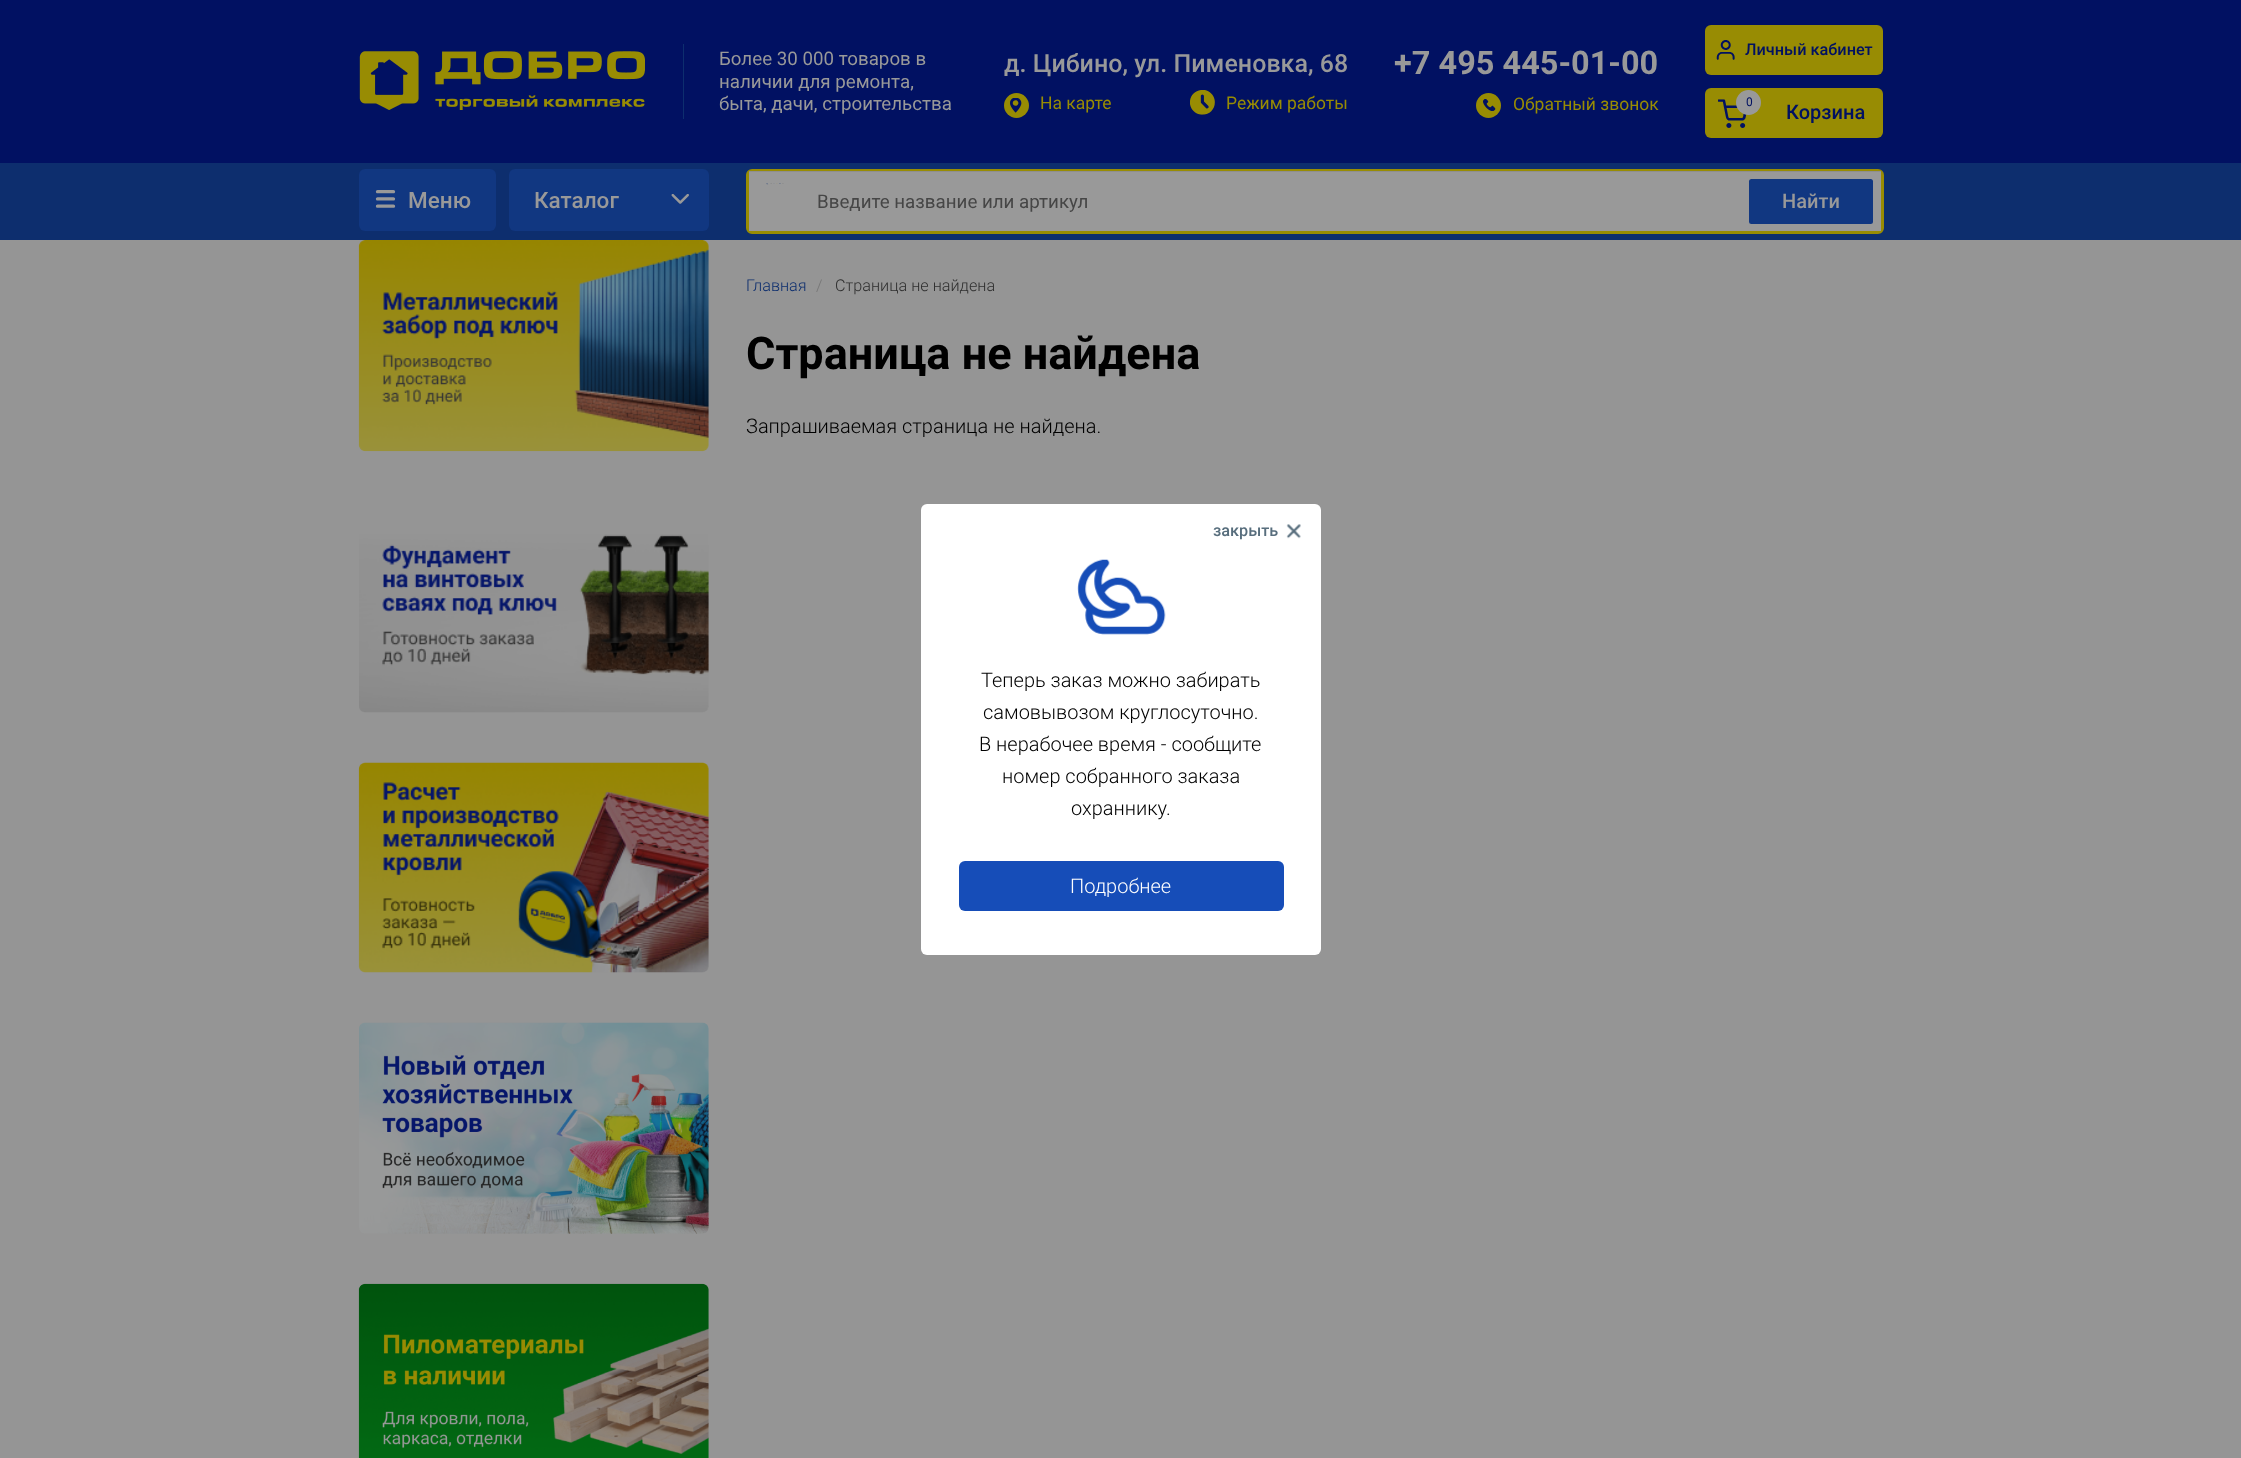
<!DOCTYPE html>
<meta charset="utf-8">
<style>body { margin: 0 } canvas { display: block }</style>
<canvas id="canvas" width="2241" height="1458"></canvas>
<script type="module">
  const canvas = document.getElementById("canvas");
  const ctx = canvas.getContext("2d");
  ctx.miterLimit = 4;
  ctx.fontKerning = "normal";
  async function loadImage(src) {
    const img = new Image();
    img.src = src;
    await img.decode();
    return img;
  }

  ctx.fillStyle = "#959595";
  ctx.fillRect(0, 0, 2241, 1458);
  ctx.fillStyle = "#011162";
  ctx.fillRect(0, 0, 2241, 163);
  ctx.drawImage(await loadImage("img1.png"), 359, 51, 286, 59);
  ctx.fillStyle = "#0d2e6e";
  ctx.fillRect(683, 44, 1, 75);
  ctx.font = "18.75px Roboto";
  ctx.fillStyle = "#999999";
  ctx.fillText("Более 30 000 товаров в", 719, 65);
  ctx.fillText("наличии для ремонта,", 719, 88);
  ctx.fillText("быта, дачи, строительства", 719, 110);
  ctx.font = "500 25px Roboto";
  ctx.fillText("д. Цибино, ул. Пименовка, 68", 1004, 72);
  ctx.fillStyle = "#988c03";
  ctx.beginPath();
  ctx.arc(1016.5, 105.5, 12.5, 0, Math.PI * 2);
  ctx.fill();
  ctx.drawImage(await loadImage("img2.png"), 1010, 98, 12, 15);
  ctx.font = "17.5px Roboto";
  ctx.fillText("На карте", 1040, 109);
  ctx.drawImage(await loadImage("img3.png"), 1190, 90, 25, 25);
  ctx.fillText("Режим работы", 1226, 109);
  ctx.font = "bold 32.5px Roboto";
  ctx.fillStyle = "#999999";
  ctx.fillText("+7 495 445-01-00", 1394, 74);
  ctx.fillStyle = "#988c03";
  ctx.beginPath();
  ctx.arc(1488.5, 105.5, 12.5, 0, Math.PI * 2);
  ctx.fill();
  ctx.drawImage(await loadImage("img4.png"), 1483, 99, 13, 12);
  ctx.font = "17.5px Roboto";
  ctx.fillText("Обратный звонок", 1513, 110);
  ctx.beginPath();
  ctx.roundRect(1705, 25, 178, 50, 6);
  ctx.fill();
  ctx.drawImage(await loadImage("img5.png"), 1716, 40, 19, 20);
  ctx.font = "500 16.25px Roboto";
  ctx.fillStyle = "#011162";
  ctx.fillText("Личный кабинет", 1745, 55);
  ctx.fillStyle = "#988c03";
  ctx.beginPath();
  ctx.roundRect(1705, 88, 178, 50, 6);
  ctx.fill();
  ctx.drawImage(await loadImage("img6.png"), 1718, 99, 29, 29);
  ctx.fillStyle = "#999999";
  ctx.beginPath();
  ctx.arc(1748.5, 102.5, 12.5, 0, Math.PI * 2);
  ctx.fill();
  ctx.font = "12px Roboto";
  ctx.fillStyle = "#011162";
  ctx.fillText("0", 1746, 106);
  ctx.font = "500 20px Roboto";
  ctx.fillText("Корзина", 1786, 119);
  ctx.fillStyle = "#0d2e6e";
  ctx.fillRect(0, 163, 2241, 77);
  ctx.fillStyle = "#113781";
  ctx.beginPath();
  ctx.roundRect(359, 169, 137, 62, 6);
  ctx.fill();
  ctx.drawImage(await loadImage("img7.png"), 375, 190, 21, 18);
  ctx.font = "500 22.5px Roboto";
  ctx.fillStyle = "#999999";
  ctx.fillText("Меню", 408, 208);
  ctx.fillStyle = "#113781";
  ctx.beginPath();
  ctx.roundRect(509, 169, 200, 62, 6);
  ctx.fill();
  ctx.fillStyle = "#999999";
  ctx.fillText("Каталог", 534, 208);
  ctx.drawImage(await loadImage("img8.png"), 671, 194, 18, 10);
  ctx.beginPath();
  ctx.roundRect(747.5, 170.5, 1135, 62, 4.5);
  ctx.strokeStyle = "#988c03";
  ctx.lineWidth = 3;
  ctx.stroke();
  ctx.fillRect(749, 172, 1132, 59);
  ctx.drawImage(await loadImage("img9.png"), 766, 183, 18, 2);
  ctx.fillStyle = "#8e8e8e";
  ctx.fillRect(749, 171, 1132, 1);
  ctx.font = "18.75px Roboto";
  ctx.fillStyle = "#464646";
  ctx.fillText("Введите название или артикул", 817, 208);
  ctx.fillStyle = "#113781";
  ctx.beginPath();
  ctx.roundRect(1749, 179, 124, 45, 2.5);
  ctx.fill();
  ctx.font = "500 20px Roboto";
  ctx.fillStyle = "#999999";
  ctx.fillText("Найти", 1782, 208);
  ctx.drawImage(await loadImage("img10.png"), 358, 240, 351, 212);
  ctx.drawImage(await loadImage("img11.png"), 359, 534, 350, 179);
  ctx.drawImage(await loadImage("img12.png"), 358, 762, 351, 211);
  ctx.drawImage(await loadImage("img13.png"), 359, 1022, 350, 212);
  ctx.drawImage(await loadImage("img14.png"), 358, 1283, 351, 175);
  ctx.font = "300 16.25px Roboto";
  ctx.fillStyle = "#0d2e6e";
  ctx.fillText("Главная", 746, 291);
  ctx.fillStyle = "#767676";
  ctx.fillText("/", 816, 291);
  ctx.fillStyle = "#2f2f2f";
  ctx.fillText("Страница не найдена", 835, 291);
  ctx.font = "bold 45px Roboto";
  ctx.fillStyle = "#000000";
  ctx.fillText("Страница не найдена", 746, 369);
  ctx.font = "300 20px Roboto";
  ctx.fillText("Запрашиваемая страница не найдена.", 746, 433);
  ctx.fillStyle = "#ffffff";
  ctx.beginPath();
  ctx.roundRect(921, 504, 400, 451, 6);
  ctx.fill();
  ctx.font = "500 16.25px Roboto";
  ctx.fillStyle = "#586e7d";
  ctx.fillText("закрыть", 1213, 536);
  ctx.drawImage(await loadImage("img15.png"), 1286, 524, 15, 15);
  ctx.drawImage(await loadImage("img16.png"), 1077, 559, 89, 76);
  ctx.font = "300 20px Roboto";
  ctx.fillStyle = "#000000";
  ctx.fillText("Теперь заказ можно забирать", 981, 687);
  ctx.fillText("самовывозом круглосуточно.", 983, 719);
  ctx.fillText("В нерабочее время - сообщите", 979, 751);
  ctx.fillText("номер собранного заказа", 1002, 783);
  ctx.fillText("охраннику.", 1071, 815);
  ctx.fillStyle = "#164db8";
  ctx.beginPath();
  ctx.roundRect(959, 861, 325, 50, 6);
  ctx.fill();
  ctx.fillStyle = "#ffffff";
  ctx.fillText("Подробнее", 1070, 893);
</script>
